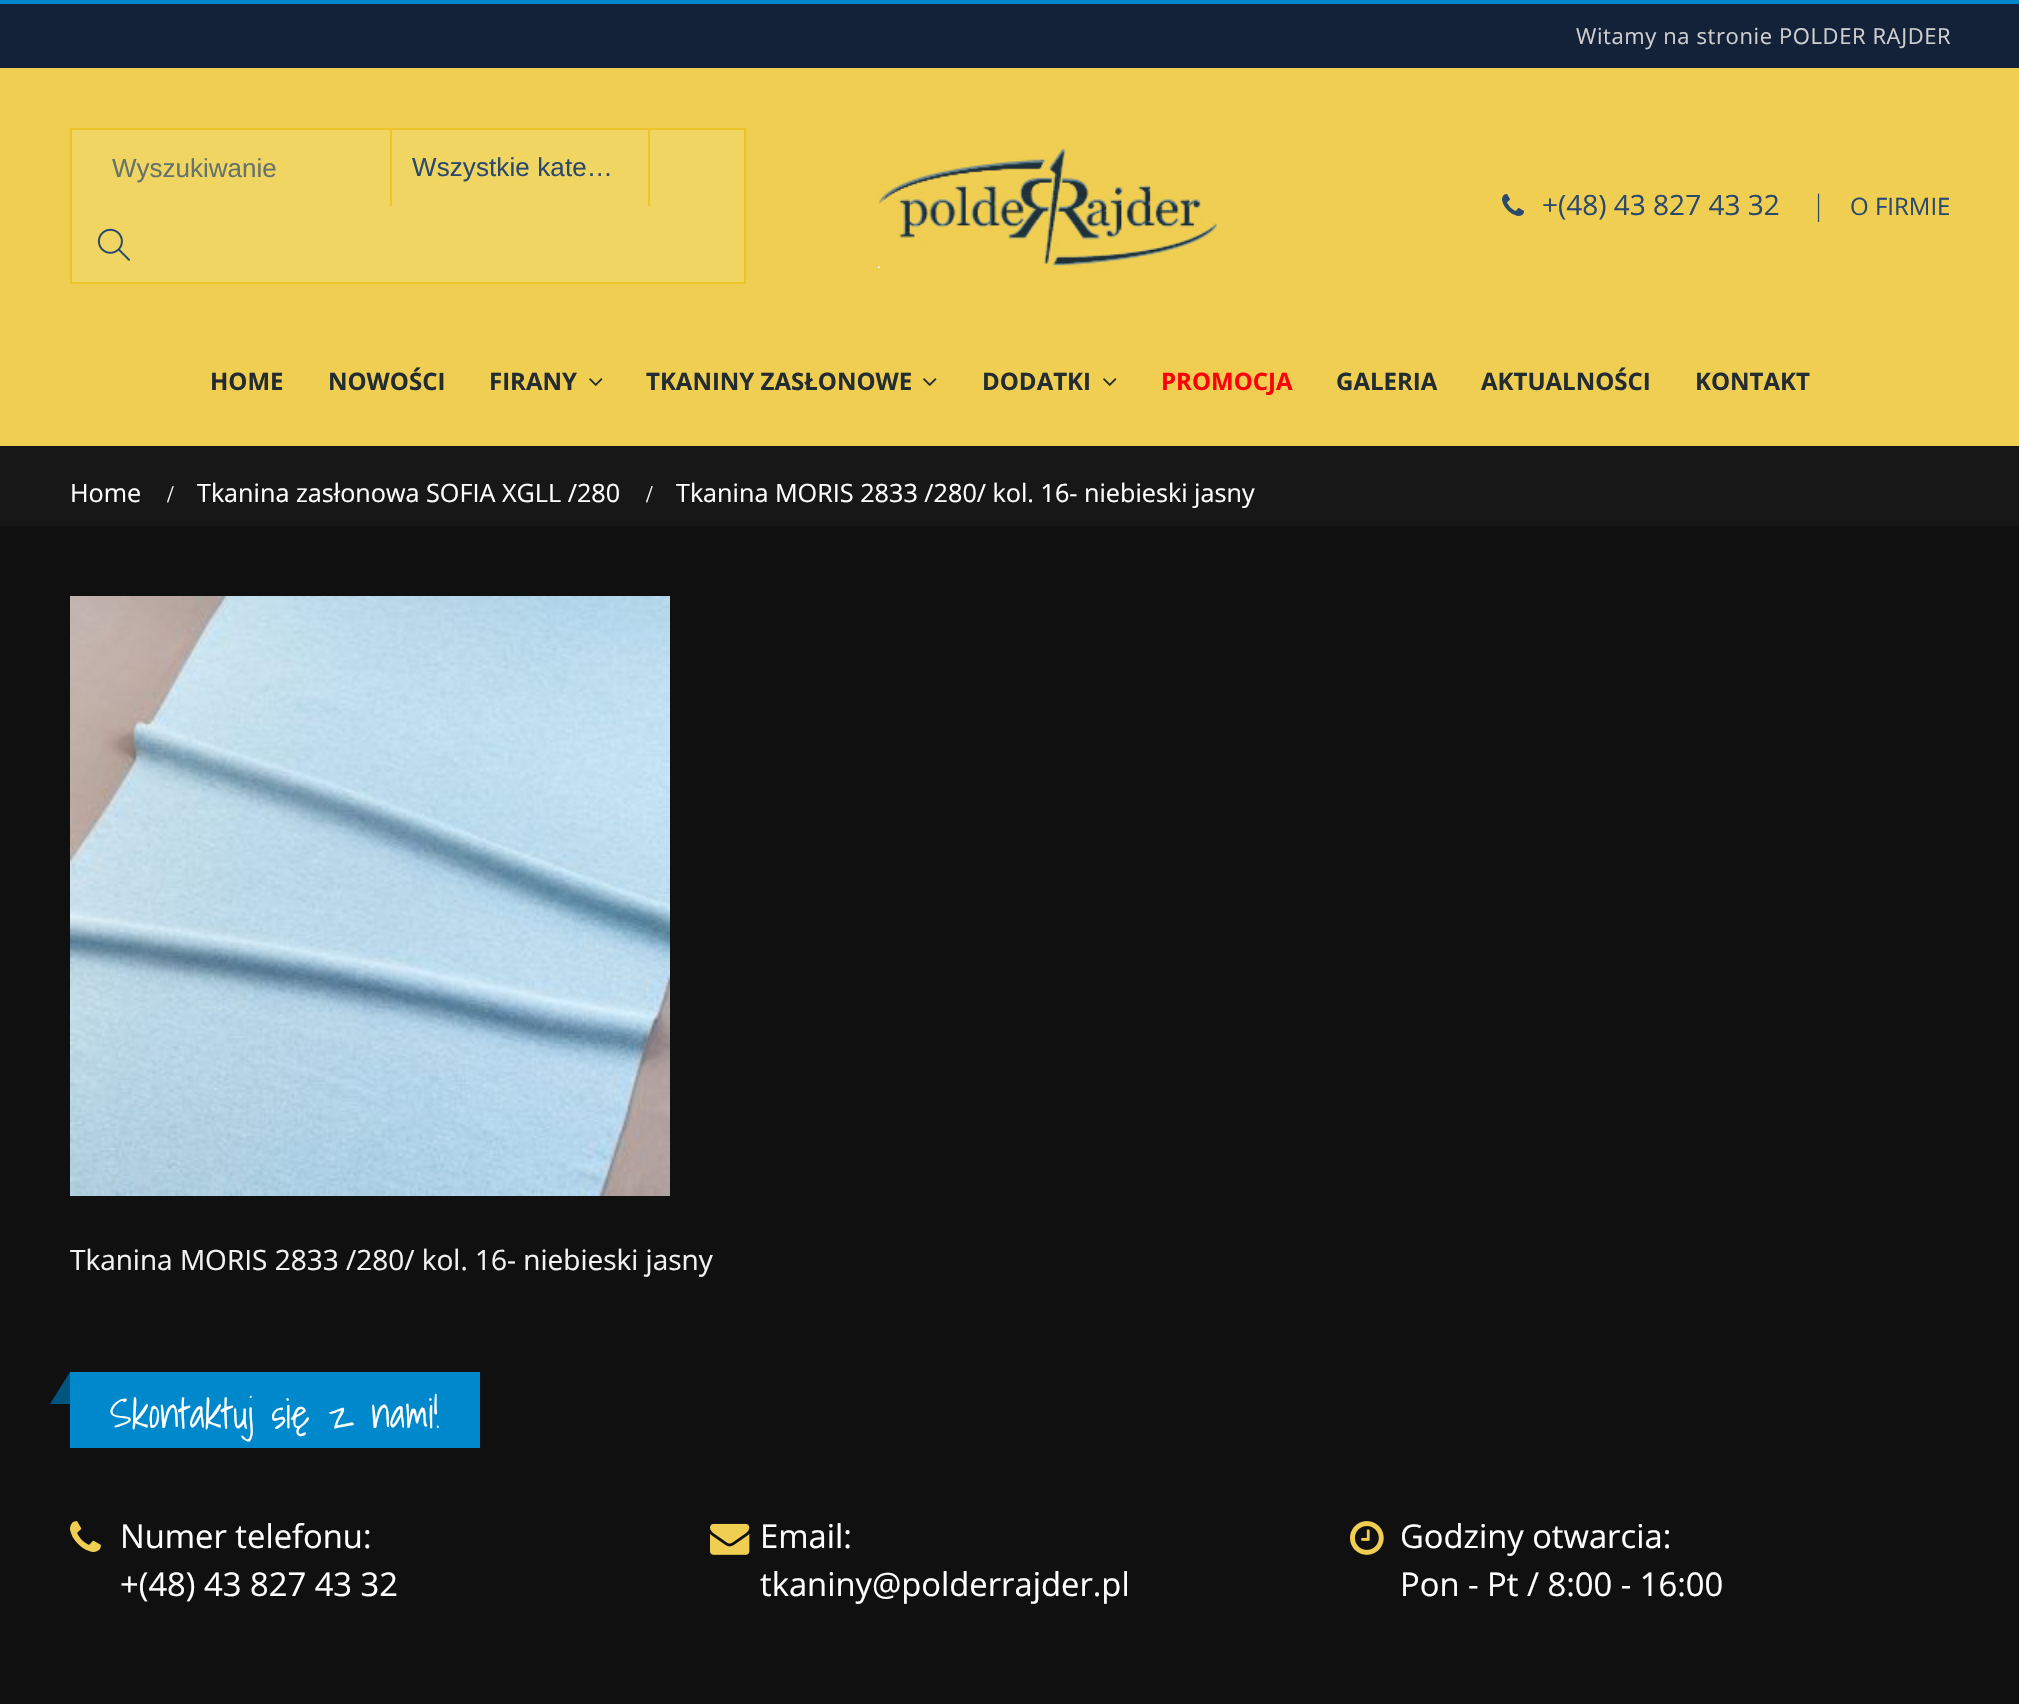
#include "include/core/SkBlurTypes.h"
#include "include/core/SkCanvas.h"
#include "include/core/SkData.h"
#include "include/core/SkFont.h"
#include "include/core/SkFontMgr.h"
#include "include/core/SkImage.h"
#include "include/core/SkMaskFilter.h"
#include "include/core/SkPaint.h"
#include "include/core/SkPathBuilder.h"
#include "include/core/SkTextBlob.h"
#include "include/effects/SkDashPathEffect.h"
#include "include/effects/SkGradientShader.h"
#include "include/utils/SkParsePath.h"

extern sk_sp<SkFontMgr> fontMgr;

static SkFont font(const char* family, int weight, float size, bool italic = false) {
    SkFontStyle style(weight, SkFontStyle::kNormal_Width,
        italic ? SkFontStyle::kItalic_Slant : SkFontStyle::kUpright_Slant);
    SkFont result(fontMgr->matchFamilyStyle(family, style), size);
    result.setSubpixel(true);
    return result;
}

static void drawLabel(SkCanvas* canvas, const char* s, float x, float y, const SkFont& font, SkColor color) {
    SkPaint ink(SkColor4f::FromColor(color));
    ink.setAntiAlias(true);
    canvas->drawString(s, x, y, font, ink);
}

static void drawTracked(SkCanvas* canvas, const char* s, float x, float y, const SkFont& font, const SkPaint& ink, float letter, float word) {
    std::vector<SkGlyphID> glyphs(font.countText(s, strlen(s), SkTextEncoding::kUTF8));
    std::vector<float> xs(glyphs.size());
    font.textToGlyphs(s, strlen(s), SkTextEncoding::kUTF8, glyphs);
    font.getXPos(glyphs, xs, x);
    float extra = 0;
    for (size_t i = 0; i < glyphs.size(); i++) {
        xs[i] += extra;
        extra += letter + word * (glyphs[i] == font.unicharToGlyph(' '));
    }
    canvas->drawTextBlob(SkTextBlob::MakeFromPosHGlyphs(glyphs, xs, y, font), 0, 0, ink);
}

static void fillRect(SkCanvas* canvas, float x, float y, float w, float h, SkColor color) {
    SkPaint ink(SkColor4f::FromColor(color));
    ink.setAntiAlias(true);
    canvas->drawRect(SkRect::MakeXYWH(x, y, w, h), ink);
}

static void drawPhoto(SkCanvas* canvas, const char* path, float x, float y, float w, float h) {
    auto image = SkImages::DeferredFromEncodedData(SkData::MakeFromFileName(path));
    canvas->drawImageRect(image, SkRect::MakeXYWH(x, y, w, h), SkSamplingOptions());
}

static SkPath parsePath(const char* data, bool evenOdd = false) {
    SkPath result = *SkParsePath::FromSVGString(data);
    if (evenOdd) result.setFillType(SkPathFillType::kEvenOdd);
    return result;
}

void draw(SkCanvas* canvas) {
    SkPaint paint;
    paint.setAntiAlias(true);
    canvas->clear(0xFF101010);
    fillRect(canvas, 0, 68, 2019, 378, 0xFFF0CE52);
    fillRect(canvas, 0, 0, 2019, 4, 0xFF0088CC);
    fillRect(canvas, 0, 4, 2019, 64, 0xFF132239);
    SkFont font1 = font("Open Sans", 400, 22);
    paint.setColor(0xFFCECECE);
    drawTracked(canvas, "Witamy na stronie POLDER RAJDER", 1576, 44, font1, paint, 0.6f, 0);
    paint.setColor(0xFFF0D562);
    canvas->drawRect(SkRect::MakeXYWH(71, 129, 674, 154), paint);
    paint.setStroke(true);
    paint.setStrokeWidth(2);
    paint.setColor(0xFFECC52A);
    canvas->drawRect(SkRect::MakeXYWH(71, 129, 674, 154), paint);
    fillRect(canvas, 390, 130, 2, 76, 0xFFECC52A);
    SkFont font2 = font("Liberation Sans", 400, 26);
    drawLabel(canvas, "Wyszukiwanie", 112, 177, font2, 0xFF66736A);
    fillRect(canvas, 648, 130, 2, 76, 0xFFECC52A);
    paint.setStroke(false);
    paint.setColor(0xFF2B496D);
    drawTracked(canvas, "Wszystkie kate…", 412, 176, font2, paint, 0.1f, 0);
    drawPhoto(canvas, "assets/img1.png", 97, 228, 33, 33);
    drawPhoto(canvas, "assets/img2.png", 878, 148, 339, 120);
    drawPhoto(canvas, "assets/img3.png", 1502, 194, 22, 22);
    SkFont font3 = font("Open Sans", 400, 28);
    drawLabel(canvas, "+(48) 43 827 43 32", 1542, 215, font3, 0xFF2B496D);
    SkFont font4 = font("Open Sans", 300, 28);
    drawLabel(canvas, "|", 1811, 215, font4, 0xFF2B496D);
    SkFont font5 = font("Open Sans", 400, 24);
    drawLabel(canvas, "O FIRMIE", 1850, 215, font5, 0xFF2B496D);
    SkFont font6 = font("Open Sans", 700, 24);
    drawLabel(canvas, "HOME", 210, 390, font6, 0xFF232C31);
    drawLabel(canvas, "NOWOŚCI", 328, 390, font6, 0xFF232C31);
    drawLabel(canvas, "FIRANY", 489, 390, font6, 0xFF232C31);
    drawPhoto(canvas, "assets/img4.png", 589, 378, 14, 8);
    drawLabel(canvas, "TKANINY ZASŁONOWE", 646, 390, font6, 0xFF232C31);
    drawPhoto(canvas, "assets/img4.png", 923, 378, 14, 8);
    drawLabel(canvas, "DODATKI", 982, 390, font6, 0xFF232C31);
    drawPhoto(canvas, "assets/img4.png", 1103, 378, 14, 8);
    drawLabel(canvas, "PROMOCJA", 1161, 390, font6, 0xFFFF000A);
    drawLabel(canvas, "GALERIA", 1336, 390, font6, 0xFF232C31);
    drawLabel(canvas, "AKTUALNOŚCI", 1481, 390, font6, 0xFF232C31);
    drawLabel(canvas, "KONTAKT", 1695, 390, font6, 0xFF232C31);
    fillRect(canvas, 0, 446, 2019, 80, 0xFF171717);
    SkFont font7 = font("Open Sans", 400, 25.2f);
    drawLabel(canvas, "Home", 70, 502, font7, 0xFFFFFFFF);
    SkFont font8 = font("Liberation Serif", 400, 24);
    drawLabel(canvas, "/", 167, 502, font8, 0xFFFFFFFF);
    drawLabel(canvas, "Tkanina zasłonowa SOFIA XGLL /280", 197, 502, font7, 0xFFFFFFFF);
    drawLabel(canvas, "/", 646, 502, font8, 0xFFFFFFFF);
    drawLabel(canvas, "Tkanina MORIS 2833 /280/ kol. 16- niebieski jasny", 676, 502, font7, 0xFFFFFFFF);
    drawPhoto(canvas, "assets/img5.png", 70, 596, 600, 600);
    drawLabel(canvas, "Tkanina MORIS 2833 /280/ kol. 16- niebieski jasny", 70, 1270, font3, 0xFFF2F2F2);
    fillRect(canvas, 70, 1372, 410, 76, 0xFF0088CC);
    paint.setColor(0xFF005580);
    canvas->drawPath(parsePath("M70 1372V1404H50Z"), paint);
    SkFont font9 = font("Shadows Into Light", 300, 40.25f);
    drawLabel(canvas, "Skontaktuj się z nami!", 110, 1428, font9, 0xFFFFFFFF);
    drawPhoto(canvas, "assets/img6.png", 70, 1521, 31, 31);
    SkFont font10 = font("Open Sans", 400, 32.75f);
    drawLabel(canvas, "Numer telefonu:", 120, 1548, font10, 0xFFFFFFFF);
    drawLabel(canvas, "+(48) 43 827 43 32", 120, 1596, font10, 0xFFFFFFFF);
    drawPhoto(canvas, "assets/img7.png", 710, 1523, 40, 32);
    drawLabel(canvas, "Email:", 760, 1548, font10, 0xFFFFFFFF);
    drawLabel(canvas, "tkaniny@polderrajder.pl", 760, 1596, font10, 0xFFFFFFFF);
    drawPhoto(canvas, "assets/img8.png", 1350, 1521, 34, 34);
    drawLabel(canvas, "Godziny otwarcia:", 1400, 1548, font10, 0xFFFFFFFF);
    drawLabel(canvas, "Pon - Pt / 8:00 - 16:00", 1400, 1596, font10, 0xFFFFFFFF);
}
